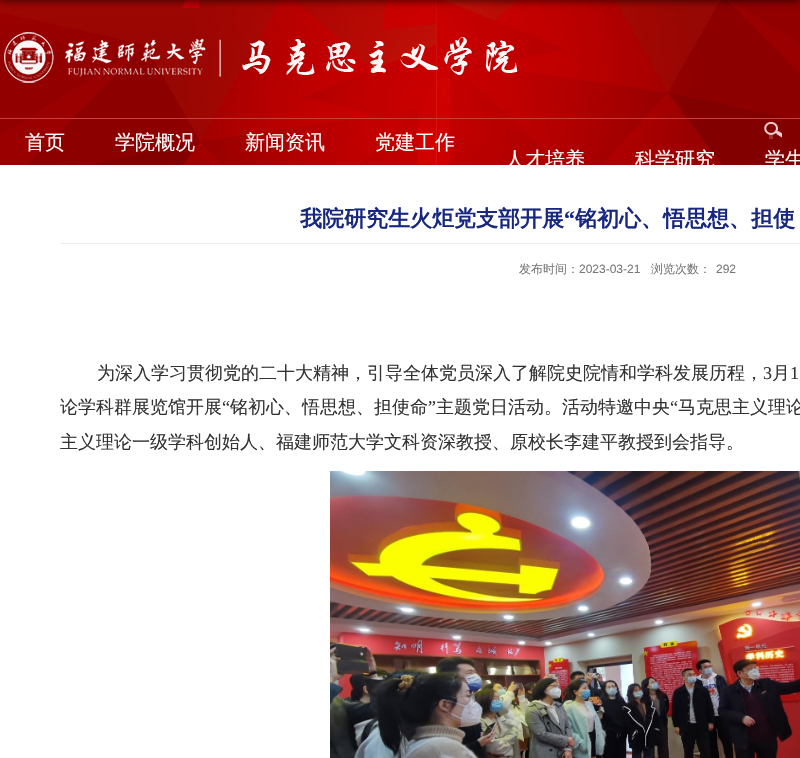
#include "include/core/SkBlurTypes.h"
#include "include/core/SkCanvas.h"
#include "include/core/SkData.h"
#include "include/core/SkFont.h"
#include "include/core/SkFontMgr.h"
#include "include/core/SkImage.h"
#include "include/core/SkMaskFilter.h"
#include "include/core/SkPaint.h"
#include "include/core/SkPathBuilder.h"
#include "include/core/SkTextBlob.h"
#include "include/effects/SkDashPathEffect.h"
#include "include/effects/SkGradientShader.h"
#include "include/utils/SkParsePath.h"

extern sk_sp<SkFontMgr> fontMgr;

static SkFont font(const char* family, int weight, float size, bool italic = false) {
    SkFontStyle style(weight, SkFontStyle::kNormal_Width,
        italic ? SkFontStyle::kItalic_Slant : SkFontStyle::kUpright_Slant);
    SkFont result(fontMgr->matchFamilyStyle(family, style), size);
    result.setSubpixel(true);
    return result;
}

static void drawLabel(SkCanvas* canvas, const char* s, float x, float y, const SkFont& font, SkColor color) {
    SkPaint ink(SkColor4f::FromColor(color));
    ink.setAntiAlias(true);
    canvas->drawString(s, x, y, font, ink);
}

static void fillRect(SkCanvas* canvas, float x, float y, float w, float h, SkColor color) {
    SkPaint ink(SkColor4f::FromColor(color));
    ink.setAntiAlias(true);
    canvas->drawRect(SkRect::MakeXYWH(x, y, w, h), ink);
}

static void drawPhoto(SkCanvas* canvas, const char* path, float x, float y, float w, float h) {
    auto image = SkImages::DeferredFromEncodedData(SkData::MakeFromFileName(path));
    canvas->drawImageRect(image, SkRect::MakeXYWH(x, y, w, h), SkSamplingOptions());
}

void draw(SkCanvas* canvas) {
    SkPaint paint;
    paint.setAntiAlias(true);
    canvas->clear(0xFFFFFFFF);
    drawPhoto(canvas, "assets/img1.png", 0, 0, 800, 165);
    paint.setColor(0xCC000000);
    paint.setMaskFilter(SkMaskFilter::MakeBlur(kNormal_SkBlurStyle, 5));
    canvas->drawRect(SkRect::MakeXYWH(0, -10, 800, 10), paint);
    paint.setMaskFilter(nullptr);
    drawPhoto(canvas, "assets/img2.png", 4, 32, 514, 51);
    drawPhoto(canvas, "assets/img3.png", 764, 121, 18, 17);
    fillRect(canvas, 769, 134, 4, 5, 0x33FFFFFF);
    fillRect(canvas, 0, 118, 800, 1, 0xFFCA4040);
    SkFont font1 = font("WenQuanYi Zen Hei", 500, 20);
    drawLabel(canvas, "首页", 25, 149, font1, 0xFFFFFFFF);
    drawLabel(canvas, "学院概况", 115, 149, font1, 0xFFFFFFFF);
    drawLabel(canvas, "新闻资讯", 245, 149, font1, 0xFFFFFFFF);
    drawLabel(canvas, "党建工作", 375, 149, font1, 0xFFFFFFFF);
    drawLabel(canvas, "人才培养", 505, 166, font1, 0xFFFFFFFF);
    drawLabel(canvas, "科学研究", 635, 166, font1, 0xFFFFFFFF);
    drawLabel(canvas, "学生", 765, 166, font1, 0xFFFFFFFF);
    SkFont font2 = font("WenQuanYi Zen Hei", 700, 22);
    drawLabel(canvas, "我院研究生火炬党支部开展", 300, 226, font2, 0xFF182880);
    SkFont font3 = font("Liberation Serif", 700, 22);
    drawLabel(canvas, "“", 564, 226, font3, 0xFF182880);
    drawLabel(canvas, "铭初心、悟思想、担使", 575, 226, font2, 0xFF182880);
    fillRect(canvas, 60, 243, 740, 1, 0xFFECECEC);
    SkFont font4 = font("WenQuanYi Zen Hei", 500, 12);
    drawLabel(canvas, "发布时间：", 519, 273, font4, 0xFF787878);
    SkFont font5 = font("Liberation Sans", 400, 12);
    drawLabel(canvas, "2023-03-21", 579, 273, font5, 0xFF787878);
    drawLabel(canvas, "浏览次数：", 651, 273, font4, 0xFF787878);
    drawLabel(canvas, "292", 716, 273, font5, 0xFF787878);
    SkFont font6 = font("WenQuanYi Zen Hei", 500, 18);
    drawLabel(canvas, "为深入学习贯彻党的二十大精神，引导全体党员深入了解院史院情和学科发展历程，", 97, 379, font6, 0xFF333333);
    SkFont font7 = font("Liberation Serif", 400, 18);
    drawLabel(canvas, "3", 763, 379, font7, 0xFF333333);
    drawLabel(canvas, "月", 772, 379, font6, 0xFF333333);
    drawLabel(canvas, "1", 790, 379, font7, 0xFF333333);
    drawLabel(canvas, "论学科群展览馆开展", 60, 413, font6, 0xFF333333);
    drawLabel(canvas, "“", 222, 413, font7, 0xFF333333);
    drawLabel(canvas, "铭初心、悟思想、担使命", 230, 413, font6, 0xFF333333);
    drawLabel(canvas, "”", 428, 413, font7, 0xFF333333);
    drawLabel(canvas, "主题党日活动。活动特邀中央", 436, 413, font6, 0xFF333333);
    drawLabel(canvas, "“", 670, 413, font7, 0xFF333333);
    drawLabel(canvas, "马克思主义理论", 678, 413, font6, 0xFF333333);
    drawLabel(canvas, "主义理论一级学科创始人、福建师范大学文科资深教授、原校长李建平教授到会指导。", 60, 448, font6, 0xFF333333);
    drawPhoto(canvas, "assets/img4.png", 330, 471, 470, 287);
}
